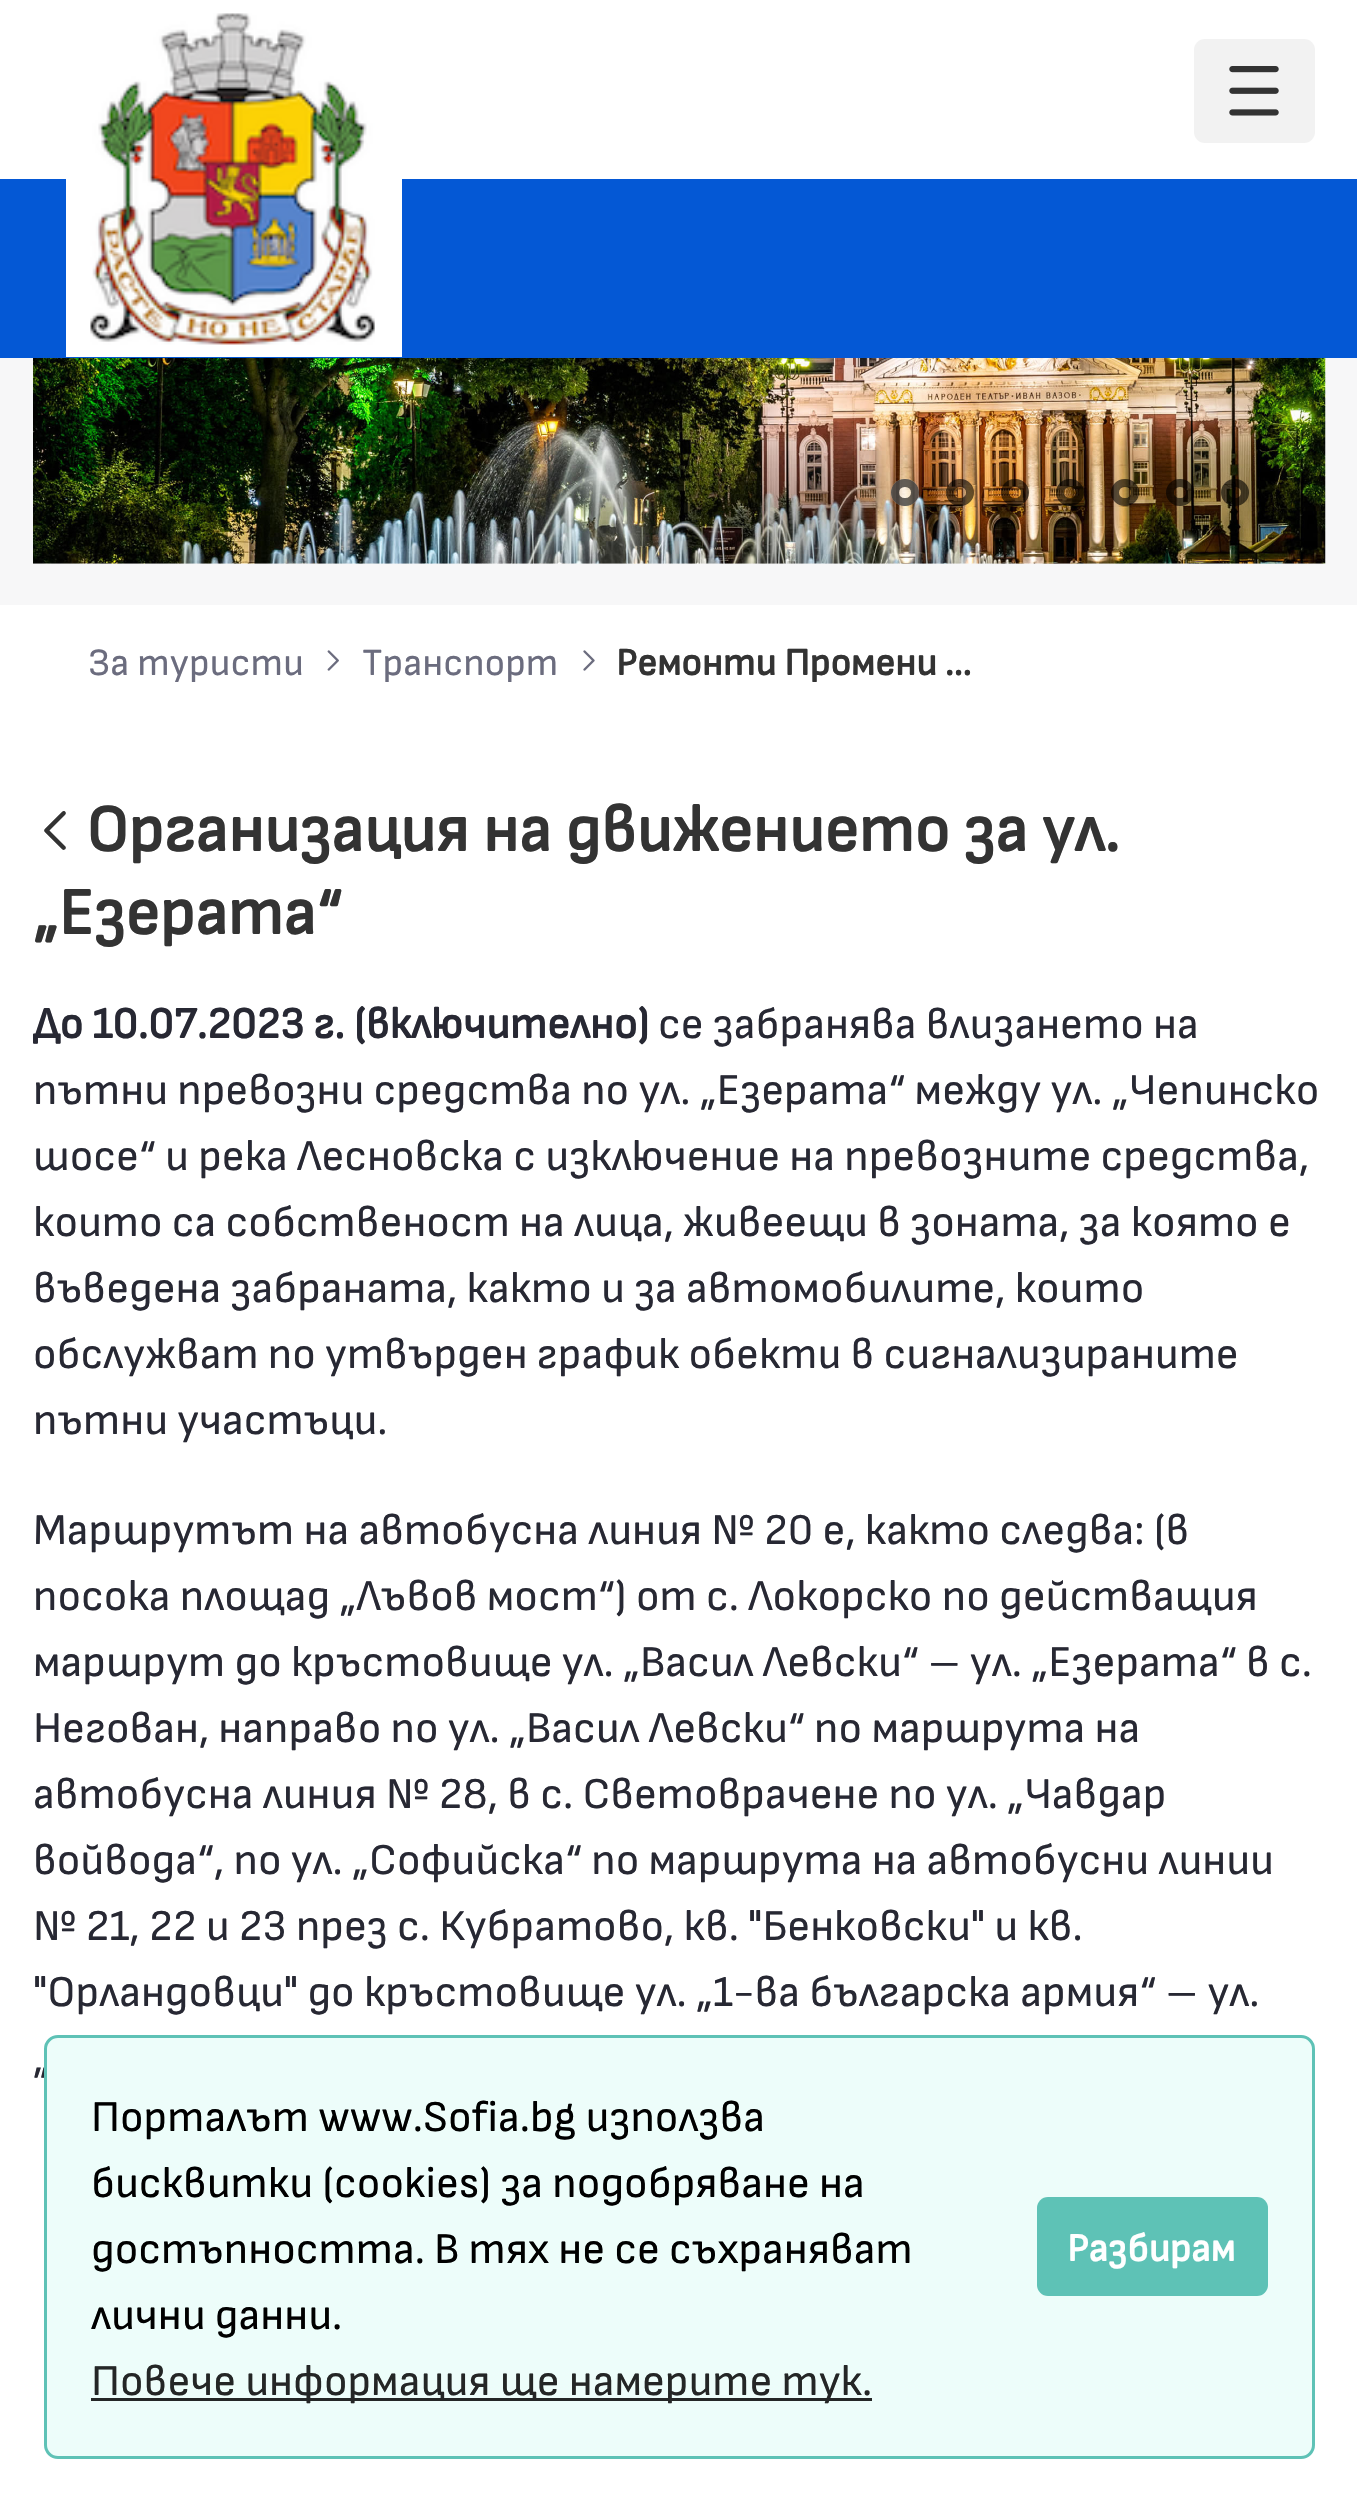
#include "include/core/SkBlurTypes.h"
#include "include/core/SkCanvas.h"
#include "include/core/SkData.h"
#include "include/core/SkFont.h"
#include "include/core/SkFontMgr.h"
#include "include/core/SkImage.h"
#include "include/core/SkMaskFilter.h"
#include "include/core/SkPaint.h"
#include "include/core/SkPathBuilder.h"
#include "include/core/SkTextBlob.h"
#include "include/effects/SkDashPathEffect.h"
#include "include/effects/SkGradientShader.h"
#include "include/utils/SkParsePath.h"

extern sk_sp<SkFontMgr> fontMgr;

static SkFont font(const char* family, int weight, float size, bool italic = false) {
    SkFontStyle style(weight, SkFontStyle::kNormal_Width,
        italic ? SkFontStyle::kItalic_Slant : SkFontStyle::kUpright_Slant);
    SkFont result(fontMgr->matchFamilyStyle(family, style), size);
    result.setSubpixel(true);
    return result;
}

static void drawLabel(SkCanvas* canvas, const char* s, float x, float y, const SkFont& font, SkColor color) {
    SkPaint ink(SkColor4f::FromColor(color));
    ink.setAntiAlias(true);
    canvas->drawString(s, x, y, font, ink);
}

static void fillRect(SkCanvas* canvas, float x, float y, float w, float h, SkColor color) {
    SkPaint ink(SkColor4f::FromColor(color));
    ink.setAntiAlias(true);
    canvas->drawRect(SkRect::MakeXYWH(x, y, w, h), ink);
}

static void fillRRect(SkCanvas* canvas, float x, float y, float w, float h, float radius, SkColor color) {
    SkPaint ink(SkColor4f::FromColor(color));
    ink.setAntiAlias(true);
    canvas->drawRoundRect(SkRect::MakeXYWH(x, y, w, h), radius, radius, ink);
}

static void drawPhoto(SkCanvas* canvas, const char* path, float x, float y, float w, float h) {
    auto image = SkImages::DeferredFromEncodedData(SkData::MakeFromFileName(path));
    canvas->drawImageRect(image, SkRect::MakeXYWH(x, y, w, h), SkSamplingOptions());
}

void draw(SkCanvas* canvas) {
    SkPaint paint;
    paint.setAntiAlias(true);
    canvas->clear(0xFFFFFFFF);
    fillRect(canvas, 0, 179, 1357, 179, 0xFF0458D5);
    drawPhoto(canvas, "assets/img1.png", 66, 13, 336, 344);
    fillRRect(canvas, 1194, 39, 121, 104, 11, 0xFFF2F2F2);
    drawPhoto(canvas, "assets/img2.png", 1229, 66, 50, 50);
    fillRect(canvas, 0, 358, 1357, 247, 0xFFF7F7F8);
    drawPhoto(canvas, "assets/img3.png", 33, 358, 1293, 206);
    fillRRect(canvas, 891, 479, 28, 27, 13.5f, 0x99FFFFFF);
    paint.setStroke(true);
    paint.setStrokeWidth(8);
    paint.setColor(0x99000000);
    canvas->drawRoundRect(SkRect::MakeXYWH(895, 483, 20, 19), 9.5f, 9.5f, paint);
    canvas->drawRoundRect(SkRect::MakeXYWH(950, 483, 20, 19), 9.5f, 9.5f, paint);
    canvas->drawRoundRect(SkRect::MakeXYWH(1005, 483, 20, 19), 9.5f, 9.5f, paint);
    canvas->drawRoundRect(SkRect::MakeXYWH(1060, 483, 20, 19), 9.5f, 9.5f, paint);
    canvas->drawRoundRect(SkRect::MakeXYWH(1115, 483, 20, 19), 9.5f, 9.5f, paint);
    canvas->drawRoundRect(SkRect::MakeXYWH(1170, 483, 20, 19), 9.5f, 9.5f, paint);
    canvas->drawRoundRect(SkRect::MakeXYWH(1225, 483, 20, 19), 9.5f, 9.5f, paint);
    SkFont font1 = font("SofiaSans", 400, 38.5f);
    drawLabel(canvas, "За туристи", 88, 675, font1, 0xFF6B6C7E);
    drawPhoto(canvas, "assets/img4.png", 327, 650, 12, 21);
    drawLabel(canvas, "Транспорт", 362, 675, font1, 0xFF6B6C7E);
    drawPhoto(canvas, "assets/img5.png", 583, 650, 12, 21);
    SkFont font2 = font("SofiaSans", 700, 38.5f);
    drawLabel(canvas, "Ремонти Промени …", 616, 675, font2, 0xFF333333);
    drawPhoto(canvas, "assets/img6.png", 44, 811, 22, 39);
    SkFont font3 = font("SofiaSans", 700, 66);
    drawLabel(canvas, "Организация на движението за ул.", 86, 851, font3, 0xFF333333);
    drawLabel(canvas, "„Езерата“", 33, 934, font3, 0xFF333333);
    SkFont font4 = font("SofiaSans", 700, 44);
    drawLabel(canvas, "До 10.07.2023 г. (включително)", 33, 1038, font4, 0xFF272833);
    SkFont font5 = font("SofiaSans", 400, 44);
    drawLabel(canvas, "се забранява влизането на", 658, 1038, font5, 0xFF272833);
    drawLabel(canvas, "пътни превозни средства по ул. „Езерата“ между ул. „Чепинско", 33, 1104, font5, 0xFF272833);
    drawLabel(canvas, "шосе“ и река Лесновска с изключение на превозните средства,", 33, 1170, font5, 0xFF272833);
    drawLabel(canvas, "които са собственост на лица, живеещи в зоната, за която е", 33, 1236, font5, 0xFF272833);
    drawLabel(canvas, "въведена забраната, както и за автомобилите, които", 33, 1302, font5, 0xFF272833);
    drawLabel(canvas, "обслужват по утвърден график обекти в сигнализираните", 33, 1368, font5, 0xFF272833);
    drawLabel(canvas, "пътни участъци.", 33, 1434, font5, 0xFF272833);
    drawLabel(canvas, "Маршрутът на автобусна линия № 20 е, както следва: (в", 33, 1544, font5, 0xFF272833);
    drawLabel(canvas, "посока площад „Лъвов мост“) от с. Локорско по действащия", 33, 1610, font5, 0xFF272833);
    drawLabel(canvas, "маршрут до кръстовище ул. „Васил Левски“ – ул. „Езерата“ в с.", 33, 1676, font5, 0xFF272833);
    drawLabel(canvas, "Негован, направо по ул. „Васил Левски“ по маршрута на", 33, 1742, font5, 0xFF272833);
    drawLabel(canvas, "автобусна линия № 28, в с. Световрачене по ул. „Чавдар", 33, 1808, font5, 0xFF272833);
    drawLabel(canvas, "войвода“, по ул. „Софийска“ по маршрута на автобусни линии", 33, 1874, font5, 0xFF272833);
    drawLabel(canvas, "№ 21, 22 и 23 през с. Кубратово, кв. \"Бенковски\" и кв.", 33, 1940, font5, 0xFF272833);
    drawLabel(canvas, "\"Орландовци\" до кръстовище ул. „1-ва българска армия“ – ул.", 33, 2006, font5, 0xFF272833);
    drawLabel(canvas, "„", 33, 2072, font5, 0xFF272833);
    paint.setStroke(false);
    paint.setColor(0xFFEDFDFA);
    canvas->drawRoundRect(SkRect::MakeXYWH(45.5f, 2036.5f, 1268, 421), 12.5f, 12.5f, paint);
    paint.setStroke(true);
    paint.setStrokeWidth(3);
    paint.setColor(0xFF5EC2B6);
    canvas->drawRoundRect(SkRect::MakeXYWH(45.5f, 2036.5f, 1268, 421), 12.5f, 12.5f, paint);
    drawLabel(canvas, "Порталът www.Sofia.bg използва", 91, 2131, font5, 0xFF000000);
    drawLabel(canvas, "бисквитки (cookies) за подобряване на", 91, 2197, font5, 0xFF000000);
    drawLabel(canvas, "достъпността. В тях не се съхраняват", 91, 2263, font5, 0xFF000000);
    drawLabel(canvas, "лични данни.", 91, 2329, font5, 0xFF000000);
    fillRect(canvas, 91, 2398, 781, 3, 0xFF242626);
    drawLabel(canvas, "Повече информация ще намерите тук.", 91, 2395, font5, 0xFF242626);
    fillRRect(canvas, 1037, 2197, 231, 99, 11, 0xFF5EC2B6);
    SkFont font6 = font("SofiaSans", 700, 39.5f);
    drawLabel(canvas, "Разбирам", 1067, 2261, font6, 0xFFFFFFFF);
}
